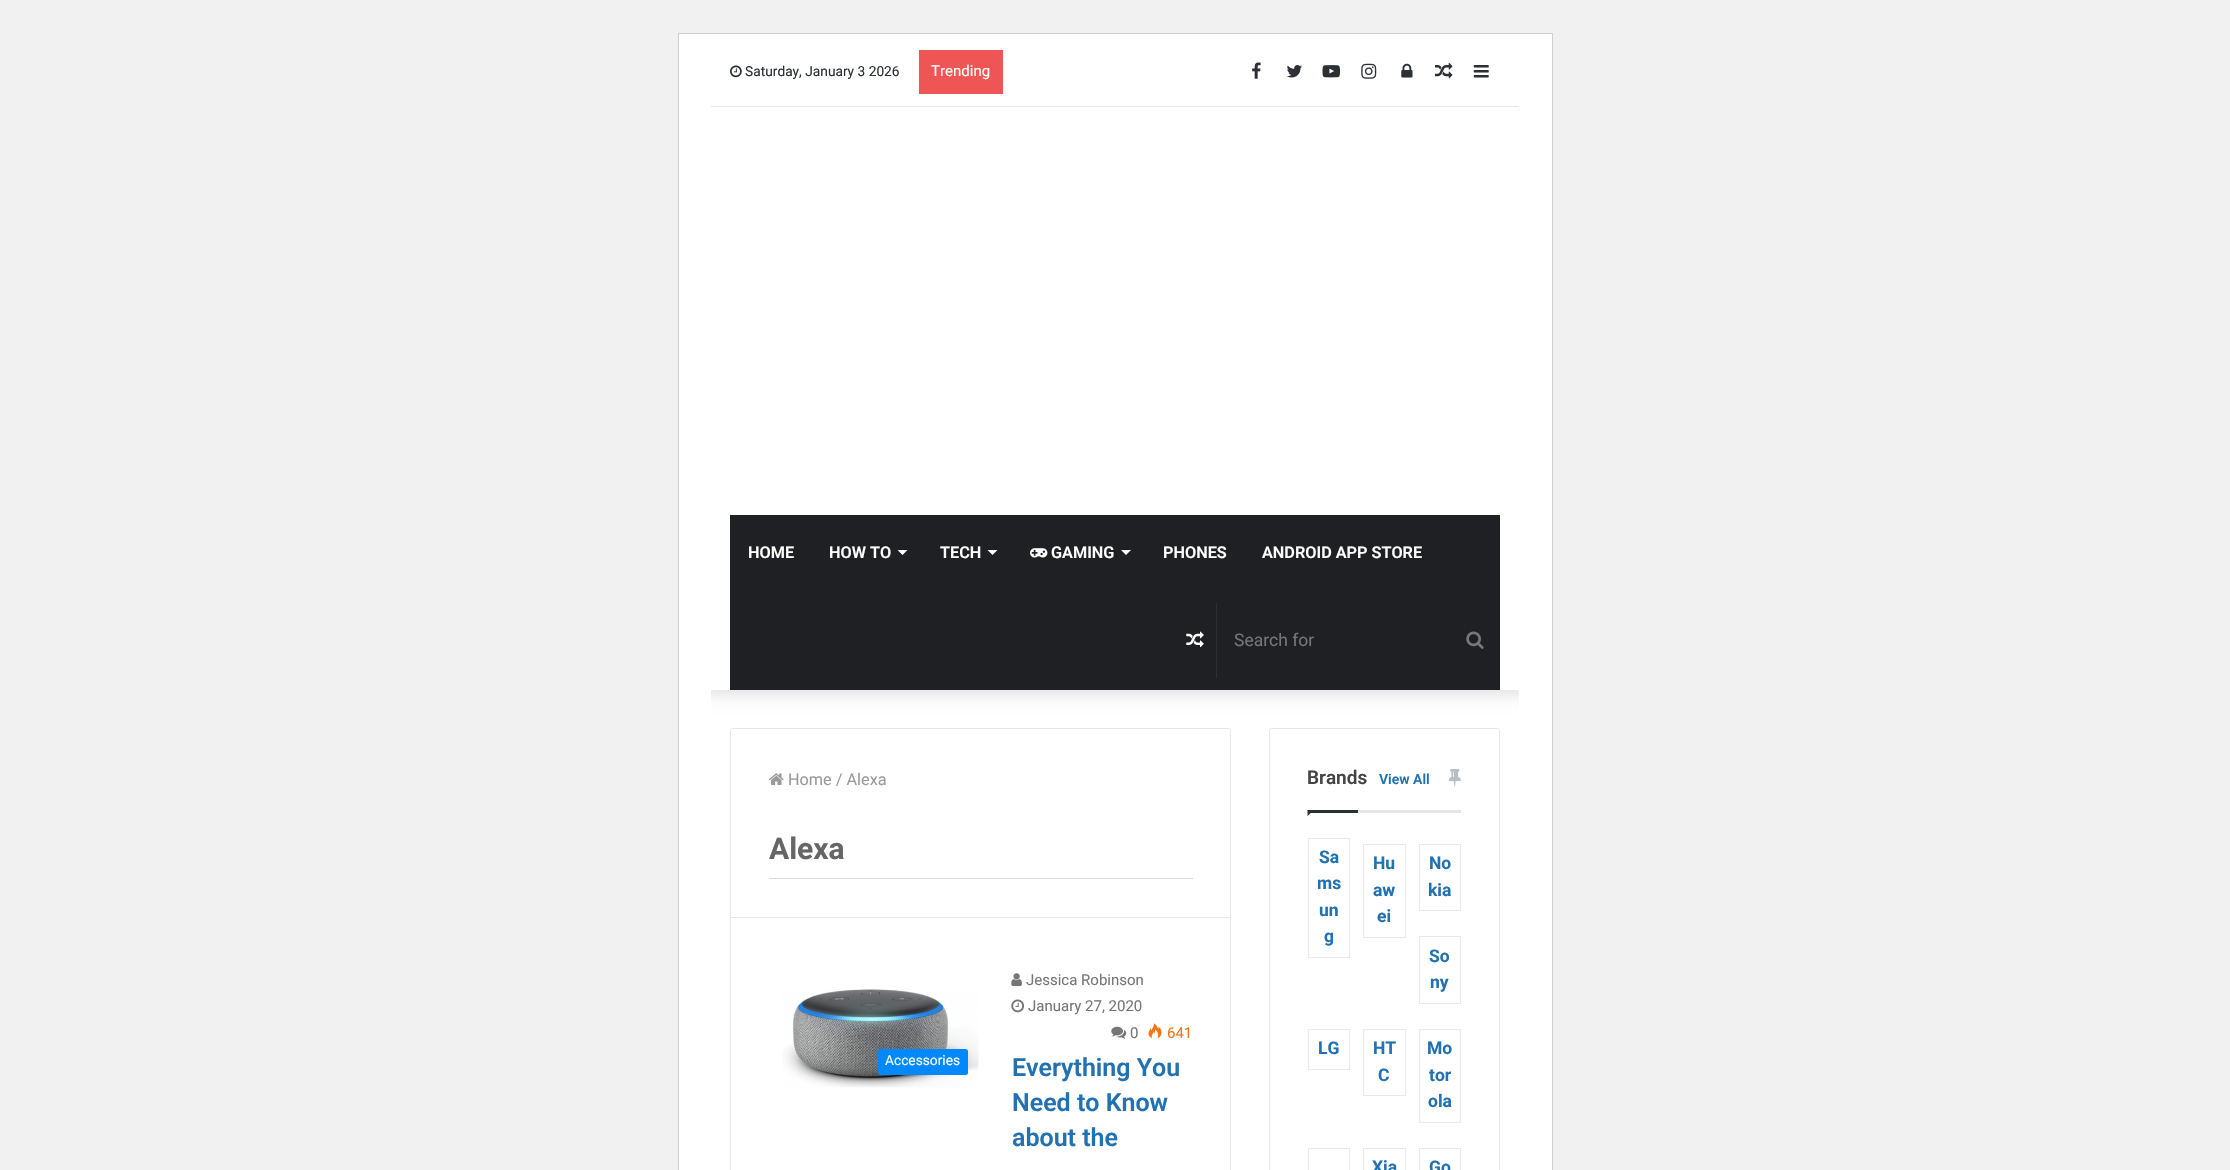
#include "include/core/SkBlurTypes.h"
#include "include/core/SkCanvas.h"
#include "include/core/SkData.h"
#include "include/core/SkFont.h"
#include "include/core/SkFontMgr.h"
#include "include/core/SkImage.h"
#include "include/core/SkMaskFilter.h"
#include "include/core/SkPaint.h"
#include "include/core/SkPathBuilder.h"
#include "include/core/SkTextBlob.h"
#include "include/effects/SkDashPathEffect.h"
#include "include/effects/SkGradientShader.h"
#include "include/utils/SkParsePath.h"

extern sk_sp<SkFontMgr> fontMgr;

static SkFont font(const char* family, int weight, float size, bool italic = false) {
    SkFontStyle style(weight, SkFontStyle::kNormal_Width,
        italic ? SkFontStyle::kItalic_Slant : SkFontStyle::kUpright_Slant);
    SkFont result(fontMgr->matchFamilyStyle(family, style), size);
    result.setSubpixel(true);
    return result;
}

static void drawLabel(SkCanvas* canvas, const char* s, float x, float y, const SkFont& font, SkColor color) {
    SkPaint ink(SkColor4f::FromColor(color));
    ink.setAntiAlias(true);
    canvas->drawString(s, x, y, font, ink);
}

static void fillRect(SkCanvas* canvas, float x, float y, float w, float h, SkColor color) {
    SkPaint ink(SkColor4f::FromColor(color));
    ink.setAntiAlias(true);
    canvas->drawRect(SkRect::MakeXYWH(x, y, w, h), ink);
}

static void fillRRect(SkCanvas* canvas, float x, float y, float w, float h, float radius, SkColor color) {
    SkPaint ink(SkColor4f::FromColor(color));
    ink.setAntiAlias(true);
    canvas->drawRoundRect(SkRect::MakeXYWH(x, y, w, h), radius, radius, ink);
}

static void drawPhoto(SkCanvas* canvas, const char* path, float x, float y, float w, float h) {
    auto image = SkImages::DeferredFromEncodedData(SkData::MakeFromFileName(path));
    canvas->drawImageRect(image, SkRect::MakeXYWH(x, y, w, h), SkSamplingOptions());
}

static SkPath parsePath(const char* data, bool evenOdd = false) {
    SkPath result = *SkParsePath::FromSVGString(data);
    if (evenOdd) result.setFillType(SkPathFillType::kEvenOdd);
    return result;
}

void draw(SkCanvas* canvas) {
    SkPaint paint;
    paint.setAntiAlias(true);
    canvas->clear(0xFFF1F1F1);
    paint.setColor(0xFFFFFFFF);
    canvas->drawRect(SkRect::MakeXYWH(678.5f, 33.5f, 874, 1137), paint);
    paint.setStroke(true);
    paint.setStrokeWidth(1);
    paint.setColor(0xFFCCD0D4);
    canvas->drawRect(SkRect::MakeXYWH(678.5f, 33.5f, 874, 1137), paint);
    canvas->save();
    canvas->clipRect(SkRect::MakeXYWH(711, 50, 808, 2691));
    paint.setStroke(false);
    paint.setColor(0x1A000000);
    paint.setMaskFilter(SkMaskFilter::MakeBlur(kNormal_SkBlurStyle, 6));
    canvas->drawRect(SkRect::MakeXYWH(705, 44, 820, 652), paint);
    paint.setMaskFilter(nullptr);
    canvas->restore();
    fillRect(canvas, 711, 50, 808, 640, 0xFFFFFFFF);
    fillRect(canvas, 711, 106, 808, 1, 0xFFE6E6E6);
    drawPhoto(canvas, "assets/img1.png", 730, 65, 12, 13);
    SkFont font1 = font("Roboto", 400, 13.75f);
    drawLabel(canvas, "Saturday, January 3 2026", 745, 76, font1, 0xFF2C2F34);
    fillRect(canvas, 919, 50, 84, 44, 0xFFF05555);
    SkFont font2 = font("Roboto", 400, 15);
    drawLabel(canvas, "Trending", 931, 76, font2, 0xFFFFFFFF);
    drawPhoto(canvas, "assets/img2.png", 1252, 62, 9, 17);
    drawPhoto(canvas, "assets/img3.png", 1286, 65, 16, 13);
    drawPhoto(canvas, "assets/img4.png", 1322, 65, 18, 13);
    drawPhoto(canvas, "assets/img5.png", 1361, 63, 16, 16);
    drawPhoto(canvas, "assets/img6.png", 1401, 63, 12, 15);
    drawPhoto(canvas, "assets/img7.png", 1435, 62, 18, 17);
    drawPhoto(canvas, "assets/img8.png", 1473, 65, 16, 13);
    fillRect(canvas, 730, 515, 770, 175, 0xFF1F2024);
    SkFont font3 = font("Roboto", 600, 16.25f);
    drawLabel(canvas, "HOME", 748, 558, font3, 0xFFFFFFFF);
    drawLabel(canvas, "HOW TO", 829, 558, font3, 0xFFFFFFFF);
    paint.setColor(0xFFFFFFFF);
    canvas->drawPath(parsePath("M897.5 550H907.5L902.5 555Z"), paint);
    drawLabel(canvas, "TECH", 940, 558, font3, 0xFFFFFFFF);
    canvas->drawPath(parsePath("M987.5 550H997.5L992.5 555Z"), paint);
    drawPhoto(canvas, "assets/img9.png", 1030, 548, 18, 10);
    drawLabel(canvas, "GAMING", 1051, 558, font3, 0xFFFFFFFF);
    canvas->drawPath(parsePath("M1121 550H1131L1126 555Z"), paint);
    drawLabel(canvas, "PHONES", 1163, 558, font3, 0xFFFFFFFF);
    drawLabel(canvas, "ANDROID APP STORE", 1262, 558, font3, 0xFFFFFFFF);
    drawPhoto(canvas, "assets/img10.png", 1186, 631, 18, 17);
    fillRect(canvas, 1216, 603, 1, 75, 0xFF2F3033);
    SkFont font4 = font("Roboto", 400, 17.5f);
    drawLabel(canvas, "Search for", 1234, 646, font4, 0xFF767676);
    drawPhoto(canvas, "assets/img11.png", 1466, 631, 18, 18);
    paint.setStroke(true);
    paint.setColor(0xFFE6E6E6);
    canvas->drawPath(parsePath("M732.5 728.5H1228.5C1229.5 728.5 1230.5 729.5 1230.5 730.5V917.5H730.5V730.5C730.5 729.5 731.5 728.5 732.5 728.5Z"), paint);
    drawPhoto(canvas, "assets/img12.png", 769, 773, 15, 12);
    SkFont font5 = font("Roboto", 400, 16.25f);
    drawLabel(canvas, "Home / Alexa", 788, 785, font5, 0xFF999999);
    fillRect(canvas, 769, 878, 424, 1, 0xFFDADADA);
    SkFont font6 = font("Roboto", 700, 30);
    drawLabel(canvas, "Alexa", 769, 859, font6, 0xFF666666);
    fillRect(canvas, 1230, 918, 1, 252, 0xFFE6E6E6);
    fillRect(canvas, 730, 918, 1, 252, 0xFFE6E6E6);
    drawPhoto(canvas, "assets/img13.png", 782, 989, 197, 99);
    fillRRect(canvas, 878, 1049, 90, 26, 2.5f, 0xFF0088FF);
    drawLabel(canvas, "Accessories", 885, 1065, font1, 0xFFFFFFFF);
    drawPhoto(canvas, "assets/img14.png", 1011, 973, 11, 14);
    drawLabel(canvas, "Jessica Robinson", 1026, 985, font2, 0xFF767676);
    drawPhoto(canvas, "assets/img15.png", 1011, 999, 14, 14);
    drawLabel(canvas, "January 27, 2020", 1028, 1011, font2, 0xFF767676);
    drawPhoto(canvas, "assets/img16.png", 1111, 1026, 16, 13);
    drawLabel(canvas, "0", 1130, 1038, font2, 0xFF767676);
    drawPhoto(canvas, "assets/img17.png", 1148, 1023, 14, 16);
    drawLabel(canvas, "641", 1167, 1038, font2, 0xFFF47512);
    SkFont font7 = font("Roboto", 600, 25);
    drawLabel(canvas, "Everything You", 1012, 1076, font7, 0xFF2271B1);
    drawLabel(canvas, "Need to Know", 1012, 1111, font7, 0xFF2271B1);
    drawLabel(canvas, "about the", 1012, 1146, font7, 0xFF2271B1);
    canvas->drawRoundRect(SkRect::MakeXYWH(1269.5f, 728.5f, 230, 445), 2, 2, paint);
    fillRect(canvas, 1358, 810, 103, 3, 0xFFE6E6E6);
    SkFont font8 = font("Roboto", 600, 19);
    drawLabel(canvas, "Brands", 1307, 784, font8, 0xFF444444);
    SkFont font9 = font("Roboto", 600, 14);
    drawLabel(canvas, "View All", 1379, 784, font9, 0xFF2271B1);
    drawPhoto(canvas, "assets/img18.png", 1448, 769, 13, 18);
    paint.setStroke(false);
    paint.setColor(0xFF2C2F34);
    canvas->drawPath(parsePath("M1307.5 810H1314L1307.5 816Z"), paint);
    fillRect(canvas, 1308, 810, 50, 3, 0xFF2C2F34);
    paint.setStroke(true);
    paint.setColor(0xFFE8E9EA);
    canvas->drawRect(SkRect::MakeXYWH(1308.5f, 838.5f, 41, 119), paint);
    SkFont font10 = font("Roboto", 700, 17.5f);
    drawLabel(canvas, "Sa", 1319, 863, font10, 0xFF2271B1);
    drawLabel(canvas, "ms", 1317, 889, font10, 0xFF2271B1);
    drawLabel(canvas, "un", 1319, 916, font10, 0xFF2271B1);
    drawLabel(canvas, "g", 1324, 942, font10, 0xFF2271B1);
    canvas->drawRect(SkRect::MakeXYWH(1363.5f, 844.5f, 42, 93), paint);
    drawLabel(canvas, "Hu", 1373, 869, font10, 0xFF2271B1);
    drawLabel(canvas, "aw", 1373, 896, font10, 0xFF2271B1);
    drawLabel(canvas, "ei", 1377, 922, font10, 0xFF2271B1);
    canvas->drawRect(SkRect::MakeXYWH(1419.5f, 844.5f, 41, 66), paint);
    drawLabel(canvas, "No", 1429, 869, font10, 0xFF2271B1);
    drawLabel(canvas, "kia", 1428, 896, font10, 0xFF2271B1);
    canvas->drawRect(SkRect::MakeXYWH(1419.5f, 936.5f, 41, 67), paint);
    drawLabel(canvas, "So", 1429, 962, font10, 0xFF2271B1);
    drawLabel(canvas, "ny", 1430, 988, font10, 0xFF2271B1);
    canvas->drawRect(SkRect::MakeXYWH(1308.5f, 1029.5f, 41, 40), paint);
    drawLabel(canvas, "LG", 1318, 1054, font10, 0xFF2271B1);
    canvas->drawRect(SkRect::MakeXYWH(1363.5f, 1029.5f, 42, 66), paint);
    drawLabel(canvas, "HT", 1373, 1054, font10, 0xFF2271B1);
    drawLabel(canvas, "C", 1378, 1081, font10, 0xFF2271B1);
    canvas->drawRect(SkRect::MakeXYWH(1419.5f, 1029.5f, 41, 93), paint);
    drawLabel(canvas, "Mo", 1427, 1054, font10, 0xFF2271B1);
    drawLabel(canvas, "tor", 1429, 1081, font10, 0xFF2271B1);
    drawLabel(canvas, "ola", 1428, 1107, font10, 0xFF2271B1);
    canvas->drawRect(SkRect::MakeXYWH(1308.5f, 1148.5f, 41, 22), paint);
    canvas->drawRect(SkRect::MakeXYWH(1363.5f, 1148.5f, 42, 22), paint);
    drawLabel(canvas, "Xia", 1372, 1173, font10, 0xFF2271B1);
    canvas->drawRect(SkRect::MakeXYWH(1419.5f, 1148.5f, 41, 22), paint);
    drawLabel(canvas, "Go", 1429, 1173, font10, 0xFF2271B1);
}
